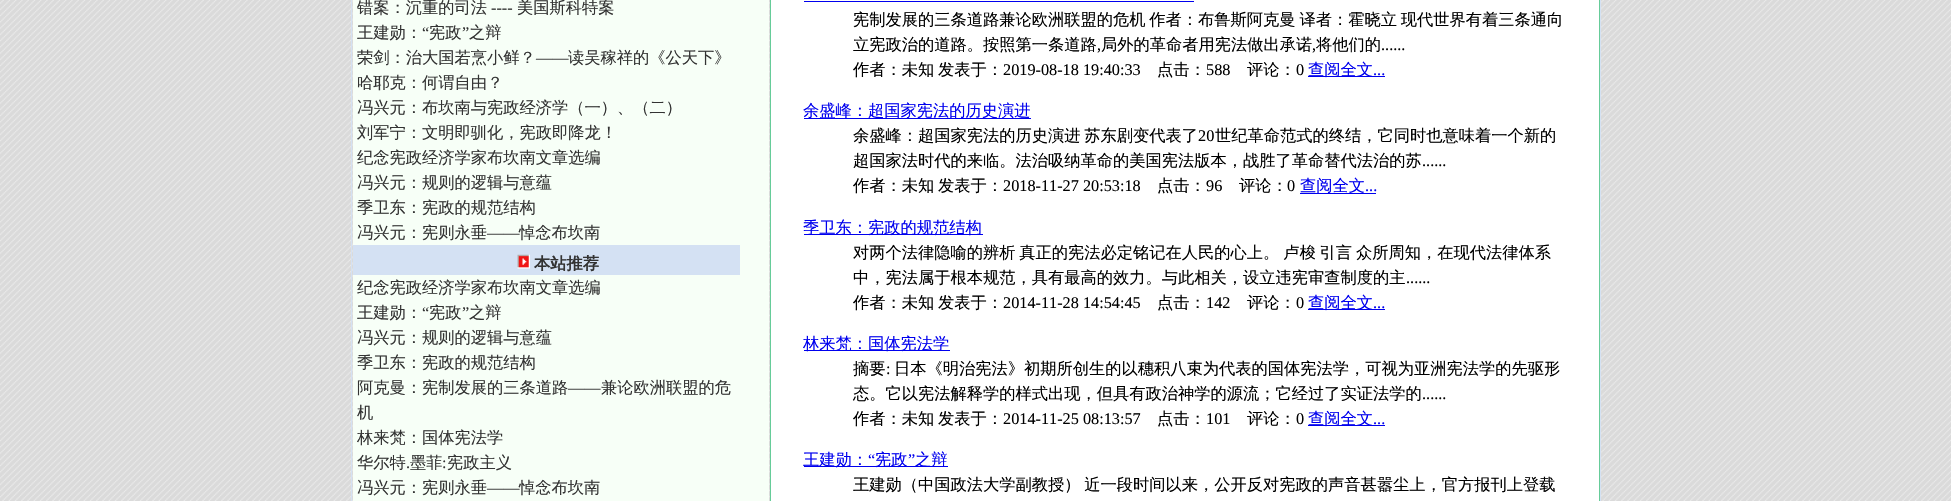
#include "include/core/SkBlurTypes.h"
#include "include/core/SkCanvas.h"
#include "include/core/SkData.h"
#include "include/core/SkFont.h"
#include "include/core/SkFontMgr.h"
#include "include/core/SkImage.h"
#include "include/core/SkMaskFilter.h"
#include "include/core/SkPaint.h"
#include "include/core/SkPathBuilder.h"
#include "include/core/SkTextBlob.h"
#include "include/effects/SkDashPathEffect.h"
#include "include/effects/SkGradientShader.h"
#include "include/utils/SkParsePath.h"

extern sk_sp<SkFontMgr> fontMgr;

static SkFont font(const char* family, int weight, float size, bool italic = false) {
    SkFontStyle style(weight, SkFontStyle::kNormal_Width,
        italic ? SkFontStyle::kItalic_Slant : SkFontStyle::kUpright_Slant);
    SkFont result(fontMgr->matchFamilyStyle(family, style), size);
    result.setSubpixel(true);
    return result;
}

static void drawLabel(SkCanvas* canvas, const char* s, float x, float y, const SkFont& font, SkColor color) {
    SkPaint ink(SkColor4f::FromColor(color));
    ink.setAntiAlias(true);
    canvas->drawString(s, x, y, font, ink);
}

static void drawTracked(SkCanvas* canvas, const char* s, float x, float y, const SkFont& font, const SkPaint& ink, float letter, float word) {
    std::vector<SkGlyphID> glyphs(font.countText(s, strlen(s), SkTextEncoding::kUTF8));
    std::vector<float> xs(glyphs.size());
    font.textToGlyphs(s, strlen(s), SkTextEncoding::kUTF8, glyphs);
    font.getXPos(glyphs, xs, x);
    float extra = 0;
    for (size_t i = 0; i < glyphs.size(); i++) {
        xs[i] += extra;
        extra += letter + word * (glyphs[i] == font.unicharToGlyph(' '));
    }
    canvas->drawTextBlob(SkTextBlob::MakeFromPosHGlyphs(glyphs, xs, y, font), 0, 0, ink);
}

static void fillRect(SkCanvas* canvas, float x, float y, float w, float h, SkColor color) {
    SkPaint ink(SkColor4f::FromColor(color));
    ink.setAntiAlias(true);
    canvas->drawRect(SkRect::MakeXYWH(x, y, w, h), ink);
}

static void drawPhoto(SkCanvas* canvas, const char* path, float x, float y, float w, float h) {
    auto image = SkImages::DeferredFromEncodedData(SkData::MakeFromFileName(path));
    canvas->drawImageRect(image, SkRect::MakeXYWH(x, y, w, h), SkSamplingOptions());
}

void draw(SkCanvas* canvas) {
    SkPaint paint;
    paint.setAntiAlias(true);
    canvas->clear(0xFFFFFFFF);
    drawPhoto(canvas, "assets/img1.png", 0, 0, 1951, 501);
    paint.setStroke(true);
    paint.setStrokeWidth(1);
    paint.setColor(0xFFD4E1F3);
    canvas->drawRect(SkRect::MakeXYWH(351.5f, -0.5f, 1249, 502), paint);
    fillRect(canvas, 740, 0, 29, 501, 0xFFF7FFF7);
    fillRect(canvas, 353, 0, 387, 245, 0xFFF7FFF7);
    SkFont font1 = font("WenQuanYi Zen Hei", 500, 16.25f);
    drawLabel(canvas, "错案：沉重的司法", 357, 13, font1, 0xFF333333);
    SkFont font2 = font("Liberation Serif", 400, 16.25f);
    drawLabel(canvas, "----", 491, 13, font2, 0xFF333333);
    drawLabel(canvas, "美国斯科特案", 517, 13, font1, 0xFF333333);
    drawLabel(canvas, "王建勋：", 357, 38, font1, 0xFF333333);
    drawLabel(canvas, "“", 422, 38, font2, 0xFF333333);
    drawLabel(canvas, "宪政", 429, 38, font1, 0xFF333333);
    drawLabel(canvas, "”", 462, 38, font2, 0xFF333333);
    drawLabel(canvas, "之辩", 469, 38, font1, 0xFF333333);
    drawLabel(canvas, "荣剑：治大国若烹小鲜？", 357, 63, font1, 0xFF333333);
    drawLabel(canvas, "——", 536, 63, font2, 0xFF333333);
    drawLabel(canvas, "读吴稼祥的《公天下》", 568, 63, font1, 0xFF333333);
    drawLabel(canvas, "哈耶克：何谓自由？", 357, 88, font1, 0xFF333333);
    drawLabel(canvas, "冯兴元：布坎南与宪政经济学（一）、（二）", 357, 113, font1, 0xFF333333);
    drawLabel(canvas, "刘军宁：文明即驯化，宪政即降龙！", 357, 138, font1, 0xFF333333);
    drawLabel(canvas, "纪念宪政经济学家布坎南文章选编", 357, 163, font1, 0xFF333333);
    drawLabel(canvas, "冯兴元：规则的逻辑与意蕴", 357, 188, font1, 0xFF333333);
    drawLabel(canvas, "季卫东：宪政的规范结构", 357, 213, font1, 0xFF333333);
    drawLabel(canvas, "冯兴元：宪则永垂", 357, 238, font1, 0xFF333333);
    drawLabel(canvas, "——", 487, 238, font2, 0xFF333333);
    drawLabel(canvas, "悼念布坎南", 519, 238, font1, 0xFF333333);
    fillRect(canvas, 353, 245, 387, 30, 0xFFD4E1F3);
    drawPhoto(canvas, "assets/img2.png", 517, 254, 13, 15);
    SkFont font3 = font("WenQuanYi Zen Hei", 700, 16.25f);
    drawLabel(canvas, "本站推荐", 534, 269, font3, 0xFF333333);
    fillRect(canvas, 353, 275, 387, 226, 0xFFF7FFF7);
    drawLabel(canvas, "纪念宪政经济学家布坎南文章选编", 357, 293, font1, 0xFF333333);
    drawLabel(canvas, "王建勋：", 357, 318, font1, 0xFF333333);
    drawLabel(canvas, "“", 422, 318, font2, 0xFF333333);
    drawLabel(canvas, "宪政", 429, 318, font1, 0xFF333333);
    drawLabel(canvas, "”", 462, 318, font2, 0xFF333333);
    drawLabel(canvas, "之辩", 469, 318, font1, 0xFF333333);
    drawLabel(canvas, "冯兴元：规则的逻辑与意蕴", 357, 343, font1, 0xFF333333);
    drawLabel(canvas, "季卫东：宪政的规范结构", 357, 368, font1, 0xFF333333);
    drawLabel(canvas, "阿克曼：宪制发展的三条道路", 357, 393, font1, 0xFF333333);
    drawLabel(canvas, "——", 568, 393, font2, 0xFF333333);
    drawLabel(canvas, "兼论欧洲联盟的危", 601, 393, font1, 0xFF333333);
    drawLabel(canvas, "机", 357, 418, font1, 0xFF333333);
    drawLabel(canvas, "林来梵：国体宪法学", 357, 443, font1, 0xFF333333);
    drawLabel(canvas, "华尔特", 357, 468, font1, 0xFF333333);
    drawLabel(canvas, ".", 406, 468, font2, 0xFF333333);
    drawLabel(canvas, "墨菲", 410, 468, font1, 0xFF333333);
    drawLabel(canvas, ":", 442, 468, font2, 0xFF333333);
    drawLabel(canvas, "宪政主义", 447, 468, font1, 0xFF333333);
    drawLabel(canvas, "冯兴元：宪则永垂", 357, 493, font1, 0xFF333333);
    drawLabel(canvas, "——", 487, 493, font2, 0xFF333333);
    drawLabel(canvas, "悼念布坎南", 519, 493, font1, 0xFF333333);
    paint.setStroke(false);
    paint.setColor(0xFFFFFFFF);
    canvas->drawRect(SkRect::MakeXYWH(770.5f, -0.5f, 829, 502), paint);
    paint.setStroke(true);
    paint.setColor(0xFF66CC99);
    canvas->drawRect(SkRect::MakeXYWH(770.5f, -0.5f, 829, 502), paint);
    fillRect(canvas, 804, 1, 390, 1, 0xFF0000EE);
    paint.setStroke(false);
    paint.setColor(0xFF000000);
    drawTracked(canvas, "宪制发展的三条道路兼论欧洲联盟的危机 作者：布鲁斯阿克曼 译者：霍晓立 现代世界有着三条通向", 853, 25, font1, paint, 0, -1);
    drawLabel(canvas, "立宪政治的道路。按照第一条道路", 853, 50, font1, 0xFF000000);
    drawLabel(canvas, ",", 1097, 50, font2, 0xFF000000);
    drawLabel(canvas, "局外的革命者用宪法做出承诺", 1101, 50, font1, 0xFF000000);
    drawLabel(canvas, ",", 1312, 50, font2, 0xFF000000);
    drawLabel(canvas, "将他们的", 1316, 50, font1, 0xFF000000);
    drawLabel(canvas, "......", 1381, 50, font2, 0xFF000000);
    drawLabel(canvas, "作者：未知", 853, 75, font1, 0xFF000000);
    drawLabel(canvas, "发表于：", 938, 75, font1, 0xFF000000);
    drawLabel(canvas, "2019-08-18 19:40:33", 1003, 75, font2, 0xFF000000);
    drawLabel(canvas, "点击：", 1157, 75, font1, 0xFF000000);
    drawLabel(canvas, "588", 1206, 75, font2, 0xFF000000);
    drawLabel(canvas, "评论：", 1247, 75, font1, 0xFF000000);
    drawLabel(canvas, "0", 1296, 75, font2, 0xFF000000);
    fillRect(canvas, 1308, 76, 77, 1, 0xFF0000EE);
    drawLabel(canvas, "查阅全文", 1308, 75, font1, 0xFF0000EE);
    drawLabel(canvas, "...", 1373, 75, font2, 0xFF0000EE);
    fillRect(canvas, 804, 118, 227, 1, 0xFF0000EE);
    drawLabel(canvas, "余盛峰：超国家宪法的历史演进", 803, 116, font1, 0xFF0000EE);
    drawTracked(canvas, "余盛峰：超国家宪法的历史演进 苏东剧变代表了", 853, 141, font1, paint, 0, -1);
    drawLabel(canvas, "20", 1198, 141, font2, 0xFF000000);
    drawLabel(canvas, "世纪革命范式的终结，它同时也意味着一个新的", 1215, 141, font1, 0xFF000000);
    drawLabel(canvas, "超国家法时代的来临。法治吸纳革命的美国宪法版本，战胜了革命替代法治的苏", 853, 166, font1, 0xFF000000);
    drawLabel(canvas, "......", 1422, 166, font2, 0xFF000000);
    drawLabel(canvas, "作者：未知", 853, 191, font1, 0xFF000000);
    drawLabel(canvas, "发表于：", 938, 191, font1, 0xFF000000);
    drawLabel(canvas, "2018-11-27 20:53:18", 1003, 191, font2, 0xFF000000);
    drawLabel(canvas, "点击：", 1157, 191, font1, 0xFF000000);
    drawLabel(canvas, "96", 1206, 191, font2, 0xFF000000);
    drawLabel(canvas, "评论：", 1239, 191, font1, 0xFF000000);
    drawLabel(canvas, "0", 1287, 191, font2, 0xFF000000);
    fillRect(canvas, 1300, 193, 76, 1, 0xFF0000EE);
    drawLabel(canvas, "查阅全文", 1300, 191, font1, 0xFF0000EE);
    drawLabel(canvas, "...", 1365, 191, font2, 0xFF0000EE);
    fillRect(canvas, 804, 234, 179, 1, 0xFF0000EE);
    drawLabel(canvas, "季卫东：宪政的规范结构", 803, 233, font1, 0xFF0000EE);
    drawTracked(canvas, "对两个法律隐喻的辨析 真正的宪法必定铭记在人民的心上。 卢梭 引言 众所周知，在现代法律体系", 853, 258, font1, paint, 0, -1);
    drawLabel(canvas, "中，宪法属于根本规范，具有最高的效力。与此相关，设立违宪审查制度的主", 853, 283, font1, 0xFF000000);
    drawLabel(canvas, "......", 1406, 283, font2, 0xFF000000);
    drawLabel(canvas, "作者：未知", 853, 308, font1, 0xFF000000);
    drawLabel(canvas, "发表于：", 938, 308, font1, 0xFF000000);
    drawLabel(canvas, "2014-11-28 14:54:45", 1003, 308, font2, 0xFF000000);
    drawLabel(canvas, "点击：", 1157, 308, font1, 0xFF000000);
    drawLabel(canvas, "142", 1206, 308, font2, 0xFF000000);
    drawLabel(canvas, "评论：", 1247, 308, font1, 0xFF000000);
    drawLabel(canvas, "0", 1296, 308, font2, 0xFF000000);
    fillRect(canvas, 1308, 309, 77, 1, 0xFF0000EE);
    drawLabel(canvas, "查阅全文", 1308, 308, font1, 0xFF0000EE);
    drawLabel(canvas, "...", 1373, 308, font2, 0xFF0000EE);
    fillRect(canvas, 804, 350, 146, 1, 0xFF0000EE);
    drawLabel(canvas, "林来梵：国体宪法学", 803, 349, font1, 0xFF0000EE);
    drawLabel(canvas, "摘要", 853, 374, font1, 0xFF000000);
    drawLabel(canvas, ":", 886, 374, font2, 0xFF000000);
    drawLabel(canvas, "日本《明治宪法》初期所创生的以穗积八束为代表的国体宪法学，可视为亚洲宪法学的先驱形", 894, 374, font1, 0xFF000000);
    drawLabel(canvas, "态。它以宪法解释学的样式出现，但具有政治神学的源流；它经过了实证法学的", 853, 399, font1, 0xFF000000);
    drawLabel(canvas, "......", 1422, 399, font2, 0xFF000000);
    drawLabel(canvas, "作者：未知", 853, 424, font1, 0xFF000000);
    drawLabel(canvas, "发表于：", 938, 424, font1, 0xFF000000);
    drawLabel(canvas, "2014-11-25 08:13:57", 1003, 424, font2, 0xFF000000);
    drawLabel(canvas, "点击：", 1157, 424, font1, 0xFF000000);
    drawLabel(canvas, "101", 1206, 424, font2, 0xFF000000);
    drawLabel(canvas, "评论：", 1247, 424, font1, 0xFF000000);
    drawLabel(canvas, "0", 1296, 424, font2, 0xFF000000);
    fillRect(canvas, 1308, 425, 77, 1, 0xFF0000EE);
    drawLabel(canvas, "查阅全文", 1308, 424, font1, 0xFF0000EE);
    drawLabel(canvas, "...", 1373, 424, font2, 0xFF0000EE);
    fillRect(canvas, 804, 466, 144, 1, 0xFF0000EE);
    drawLabel(canvas, "王建勋：", 803, 465, font1, 0xFF0000EE);
    drawLabel(canvas, "“", 868, 465, font2, 0xFF0000EE);
    drawLabel(canvas, "宪政", 875, 465, font1, 0xFF0000EE);
    drawLabel(canvas, "”", 908, 465, font2, 0xFF0000EE);
    drawLabel(canvas, "之辩", 915, 465, font1, 0xFF0000EE);
    drawTracked(canvas, "王建勋（中国政法大学副教授） 近一段时间以来，公开反对宪政的声音甚嚣尘上，官方报刊上登载", 853, 490, font1, paint, 0, -1);
}
